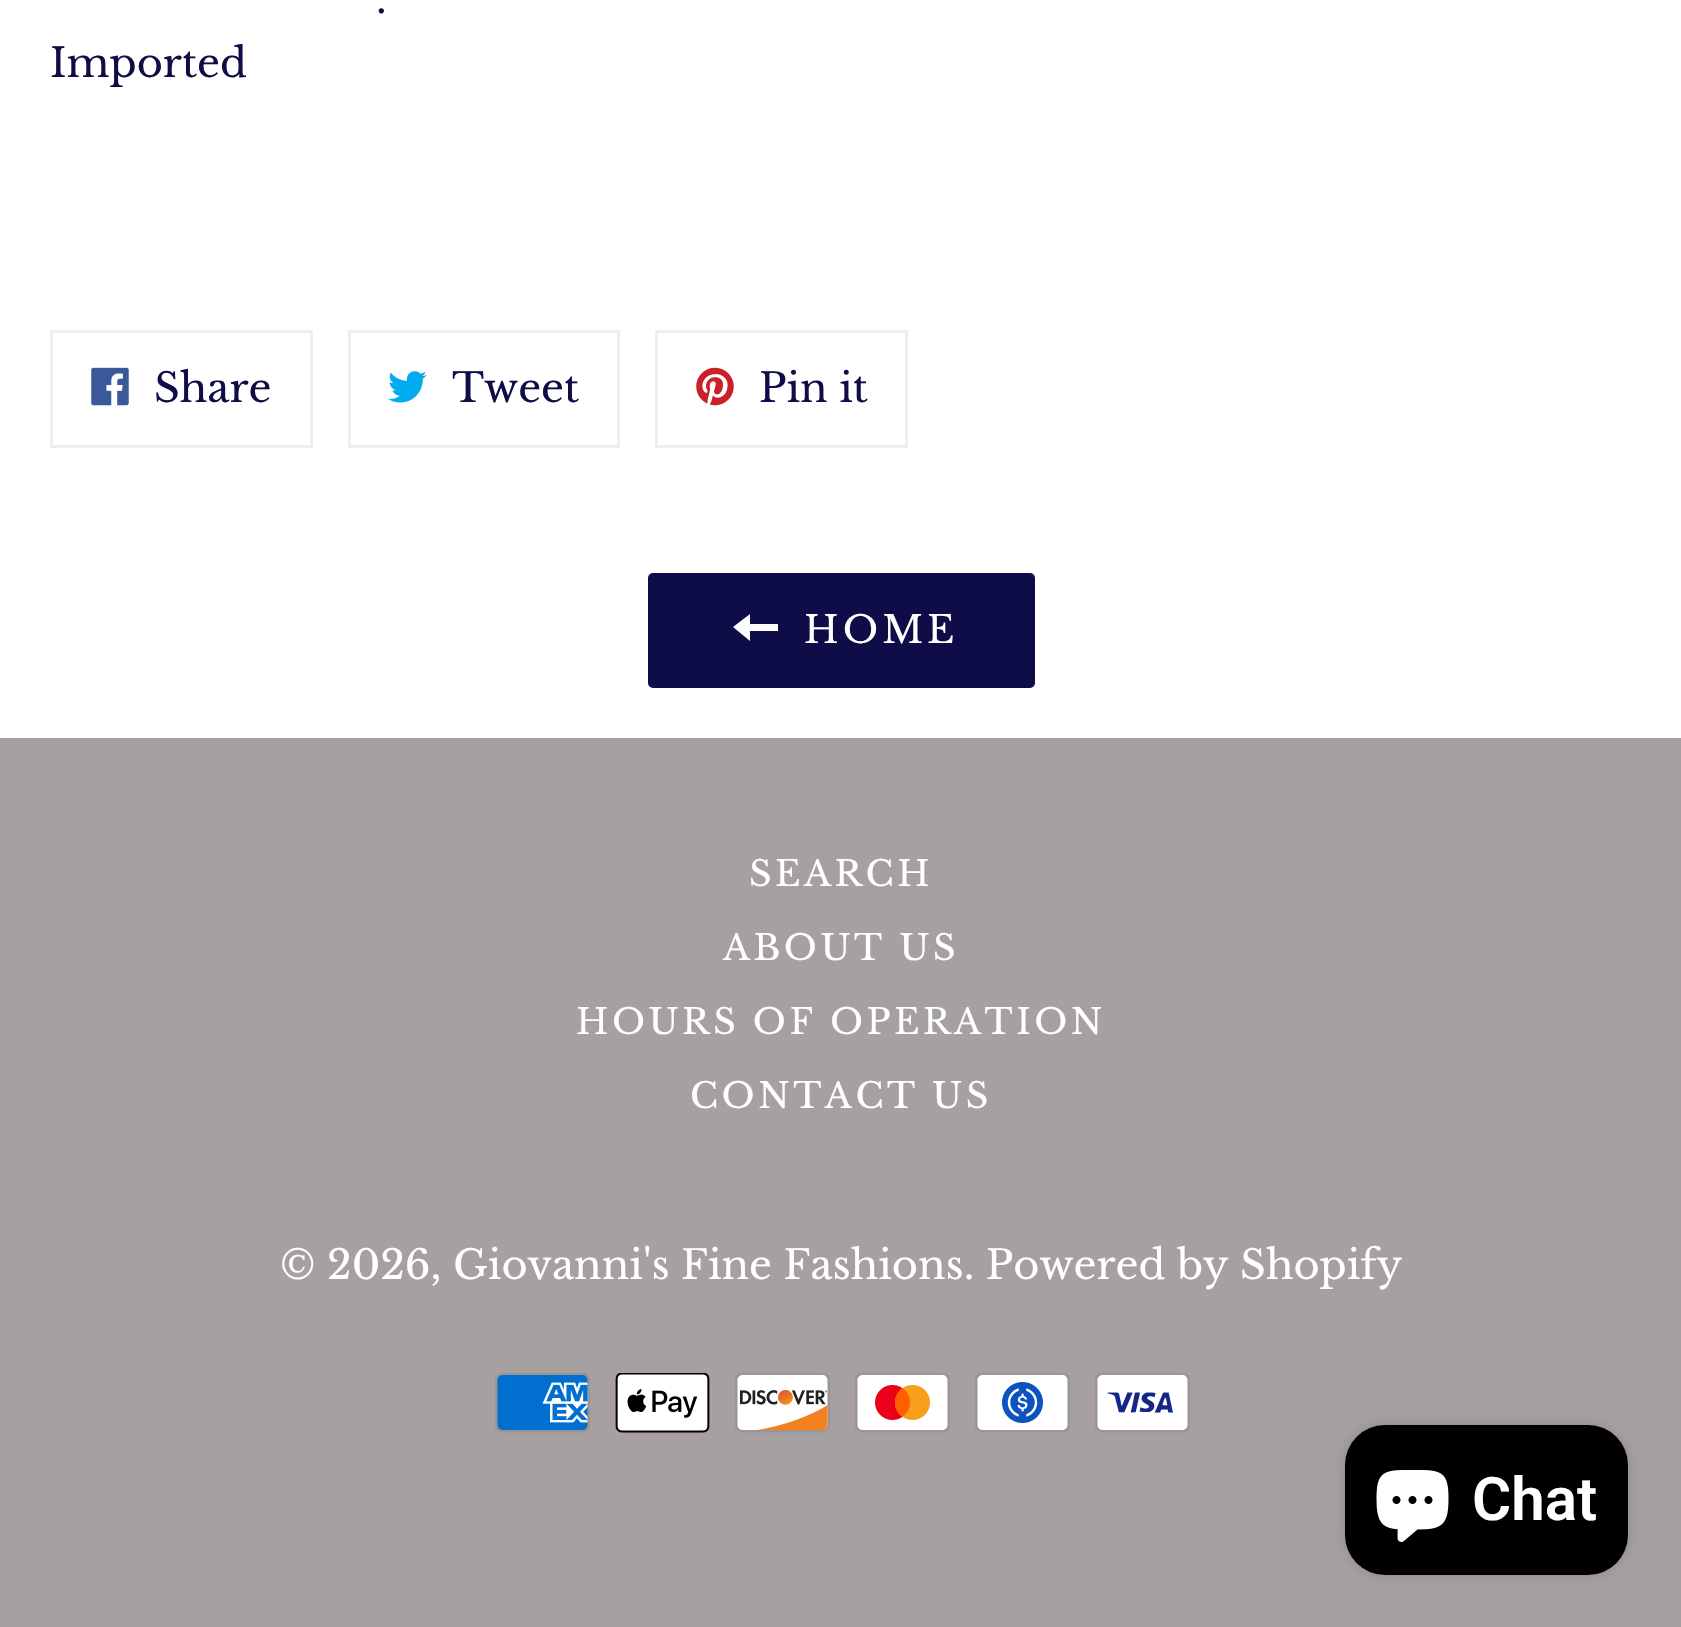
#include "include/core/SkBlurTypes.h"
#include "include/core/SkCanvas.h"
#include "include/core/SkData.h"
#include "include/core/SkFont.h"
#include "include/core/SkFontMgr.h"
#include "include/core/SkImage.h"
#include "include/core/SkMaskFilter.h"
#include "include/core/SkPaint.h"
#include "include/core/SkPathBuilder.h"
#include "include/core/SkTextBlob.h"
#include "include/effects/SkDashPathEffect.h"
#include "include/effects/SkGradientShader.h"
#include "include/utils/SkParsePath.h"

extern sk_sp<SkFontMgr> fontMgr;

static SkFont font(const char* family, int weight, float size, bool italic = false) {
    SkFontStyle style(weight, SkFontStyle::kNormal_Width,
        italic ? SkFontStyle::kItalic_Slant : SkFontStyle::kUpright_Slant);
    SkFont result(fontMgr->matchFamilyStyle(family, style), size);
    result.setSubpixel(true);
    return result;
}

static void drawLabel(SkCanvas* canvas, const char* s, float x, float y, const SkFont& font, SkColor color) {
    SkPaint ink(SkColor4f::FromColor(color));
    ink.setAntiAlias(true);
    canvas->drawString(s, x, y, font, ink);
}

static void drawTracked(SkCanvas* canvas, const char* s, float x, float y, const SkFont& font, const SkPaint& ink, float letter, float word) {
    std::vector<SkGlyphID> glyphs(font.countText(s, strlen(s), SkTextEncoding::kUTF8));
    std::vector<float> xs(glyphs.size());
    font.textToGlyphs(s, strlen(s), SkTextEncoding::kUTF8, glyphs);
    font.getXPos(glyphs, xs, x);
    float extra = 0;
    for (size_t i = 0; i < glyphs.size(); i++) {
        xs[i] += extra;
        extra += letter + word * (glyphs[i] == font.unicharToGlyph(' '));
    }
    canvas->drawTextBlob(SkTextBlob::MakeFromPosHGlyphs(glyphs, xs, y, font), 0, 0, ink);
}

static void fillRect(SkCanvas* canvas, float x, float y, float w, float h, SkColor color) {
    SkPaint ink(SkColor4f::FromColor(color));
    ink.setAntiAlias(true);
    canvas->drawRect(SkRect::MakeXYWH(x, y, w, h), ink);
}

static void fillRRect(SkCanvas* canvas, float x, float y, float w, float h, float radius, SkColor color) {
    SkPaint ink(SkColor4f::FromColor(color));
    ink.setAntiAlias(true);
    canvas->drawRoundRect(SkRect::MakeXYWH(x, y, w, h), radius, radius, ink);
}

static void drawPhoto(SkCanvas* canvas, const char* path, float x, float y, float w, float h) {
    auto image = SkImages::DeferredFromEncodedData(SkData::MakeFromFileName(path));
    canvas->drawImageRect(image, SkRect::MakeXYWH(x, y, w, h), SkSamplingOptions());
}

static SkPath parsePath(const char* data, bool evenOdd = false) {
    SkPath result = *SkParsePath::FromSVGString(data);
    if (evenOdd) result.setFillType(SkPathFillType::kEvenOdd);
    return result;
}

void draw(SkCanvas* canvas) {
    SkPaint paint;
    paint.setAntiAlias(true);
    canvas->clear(0xFFFFFFFF);
    SkFont font1 = font("Libre Baskerville", 400, 40);
    drawLabel(canvas, ".", 376, 13, font1, 0xFF0E0D47);
    drawLabel(canvas, "Imported", 50, 77, font1, 0xFF0E0D47);
    paint.setStroke(true);
    paint.setStrokeWidth(3);
    paint.setColor(0xFFECEFF1);
    canvas->drawRect(SkRect::MakeXYWH(51.5f, 331.5f, 260, 115), paint);
    drawPhoto(canvas, "assets/img1.png", 91, 367, 38, 39);
    drawLabel(canvas, "Share", 154, 402, font1, 0xFF0E0D47);
    canvas->drawRect(SkRect::MakeXYWH(349.5f, 331.5f, 269, 115), paint);
    drawPhoto(canvas, "assets/img2.png", 388, 371, 39, 32);
    drawLabel(canvas, "Tweet", 452, 402, font1, 0xFF0E0D47);
    canvas->drawRect(SkRect::MakeXYWH(656.5f, 331.5f, 250, 115), paint);
    drawPhoto(canvas, "assets/img3.png", 696, 367, 38, 39);
    drawLabel(canvas, "Pin it", 759, 402, font1, 0xFF0E0D47);
    fillRRect(canvas, 648, 573, 387, 115, 5, 0xFF0E0D47);
    paint.setStroke(false);
    paint.setColor(0xFFFFFFFF);
    canvas->drawPath(parsePath("M750 624V614L733 627L750 641V631H778V624Z"), paint);
    SkFont font2 = font("Libre Baskerville", 400, 37.5f);
    drawTracked(canvas, "HOME", 804, 643, font2, paint, 4, 0);
    fillRect(canvas, 0, 738, 1681, 889, 0xFFA6A0A1);
    SkFont font3 = font("Libre Baskerville", 400, 35);
    drawTracked(canvas, "SEARCH", 749, 886, font3, paint, 3.5f, 0);
    drawTracked(canvas, "ABOUT US", 723, 960, font3, paint, 3.5f, 0);
    drawTracked(canvas, "HOURS OF OPERATION", 576, 1034, font3, paint, 3.5f, 0);
    drawTracked(canvas, "CONTACT US", 690, 1108, font3, paint, 3.5f, 0);
    drawLabel(canvas, "© 2026, Giovanni's Fine Fashions. Powered by Shopify", 280, 1279, font1, 0xFFFFFFFF);
    drawPhoto(canvas, "assets/img4.png", 495, 1373, 95, 60);
    drawPhoto(canvas, "assets/img5.png", 615, 1373, 95, 60);
    drawPhoto(canvas, "assets/img6.png", 735, 1373, 95, 60);
    drawPhoto(canvas, "assets/img7.png", 855, 1373, 95, 60);
    drawPhoto(canvas, "assets/img8.png", 975, 1373, 95, 59);
    drawPhoto(canvas, "assets/img9.png", 1095, 1373, 95, 60);
    paint.setColor(0x26000000);
    paint.setMaskFilter(SkMaskFilter::MakeBlur(kNormal_SkBlurStyle, 6));
    canvas->drawRoundRect(SkRect::MakeXYWH(1345, 1425, 283, 150), 40, 40, paint);
    paint.setMaskFilter(nullptr);
    fillRRect(canvas, 1345, 1425, 283, 150, 40, 0xFF000000);
    drawPhoto(canvas, "assets/img10.png", 1376, 1470, 73, 72);
    SkFont font4 = font("Roboto", 600, 60);
    drawLabel(canvas, "Chat", 1472, 1520, font4, 0xFFFFFFFF);
}
